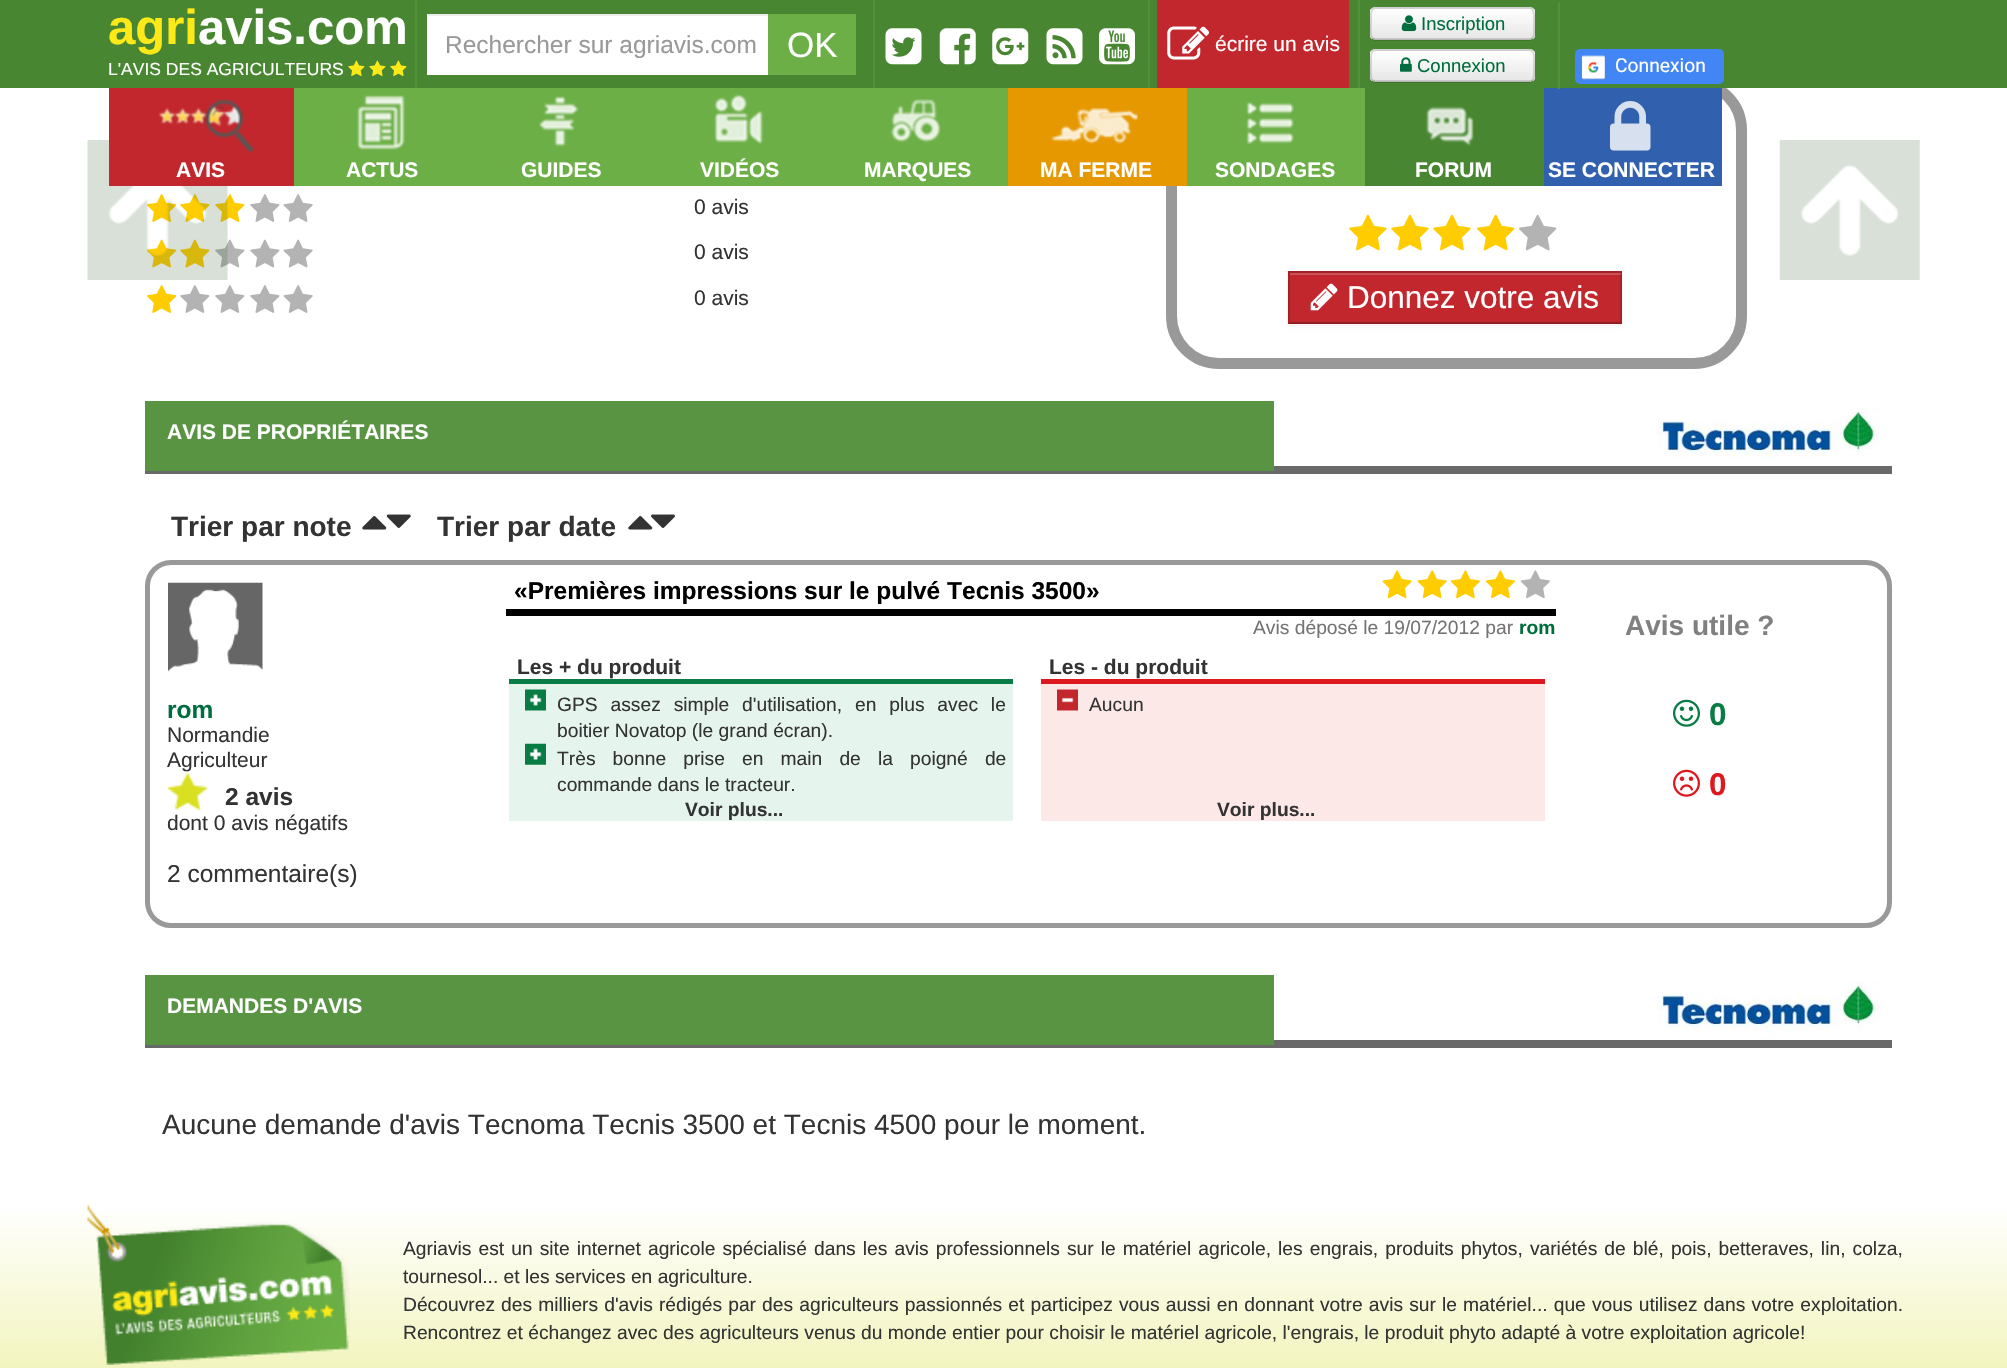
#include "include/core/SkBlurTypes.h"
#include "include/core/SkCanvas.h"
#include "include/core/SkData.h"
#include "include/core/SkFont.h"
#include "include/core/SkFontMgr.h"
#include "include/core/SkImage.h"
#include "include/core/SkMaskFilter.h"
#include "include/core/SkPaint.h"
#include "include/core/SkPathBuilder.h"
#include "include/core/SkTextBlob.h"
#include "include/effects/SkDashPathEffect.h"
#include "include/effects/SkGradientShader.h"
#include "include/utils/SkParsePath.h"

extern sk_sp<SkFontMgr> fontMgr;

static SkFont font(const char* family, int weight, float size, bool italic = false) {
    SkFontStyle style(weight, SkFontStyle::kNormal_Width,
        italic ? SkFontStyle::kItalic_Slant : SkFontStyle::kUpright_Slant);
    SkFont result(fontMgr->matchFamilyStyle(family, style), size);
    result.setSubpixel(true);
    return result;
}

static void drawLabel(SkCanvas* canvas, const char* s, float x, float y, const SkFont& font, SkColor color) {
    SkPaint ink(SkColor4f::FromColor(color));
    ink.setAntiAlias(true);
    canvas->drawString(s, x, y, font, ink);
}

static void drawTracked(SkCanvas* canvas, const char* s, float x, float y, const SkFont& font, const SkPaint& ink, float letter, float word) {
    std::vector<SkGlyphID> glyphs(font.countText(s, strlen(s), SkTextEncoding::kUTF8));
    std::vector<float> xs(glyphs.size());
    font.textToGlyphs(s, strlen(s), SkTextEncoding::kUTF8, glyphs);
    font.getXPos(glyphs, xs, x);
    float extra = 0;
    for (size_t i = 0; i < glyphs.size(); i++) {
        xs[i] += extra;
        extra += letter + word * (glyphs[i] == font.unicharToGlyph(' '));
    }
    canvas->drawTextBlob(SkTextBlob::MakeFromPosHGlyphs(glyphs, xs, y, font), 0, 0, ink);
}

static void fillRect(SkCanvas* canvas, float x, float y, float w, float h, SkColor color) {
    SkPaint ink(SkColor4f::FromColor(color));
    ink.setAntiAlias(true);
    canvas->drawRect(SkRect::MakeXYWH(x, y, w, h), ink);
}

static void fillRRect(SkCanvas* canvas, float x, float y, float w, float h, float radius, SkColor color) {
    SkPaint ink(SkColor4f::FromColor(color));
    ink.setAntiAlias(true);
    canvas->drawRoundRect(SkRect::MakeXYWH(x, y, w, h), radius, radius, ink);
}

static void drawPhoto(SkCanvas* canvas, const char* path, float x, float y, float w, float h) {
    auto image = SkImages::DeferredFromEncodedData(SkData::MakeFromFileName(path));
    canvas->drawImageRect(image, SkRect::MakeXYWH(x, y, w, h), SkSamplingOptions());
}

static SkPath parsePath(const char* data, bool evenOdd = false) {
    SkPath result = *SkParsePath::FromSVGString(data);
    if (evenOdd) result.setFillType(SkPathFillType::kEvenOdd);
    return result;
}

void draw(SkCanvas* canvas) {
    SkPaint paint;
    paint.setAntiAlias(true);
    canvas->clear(0xFFFFFFFF);
    paint.setStroke(true);
    paint.setStrokeWidth(11);
    paint.setColor(0xFF999999);
    canvas->drawRoundRect(SkRect::MakeXYWH(1171.5f, 82.5f, 570, 281), 47.5f, 47.5f, paint);
    fillRect(canvas, 0, 0, 2007, 88, 0xFF488631);
    SkFont font1 = font("Liberation Sans", 700, 49);
    drawLabel(canvas, "agri", 108, 44, font1, 0xFFFDE918);
    drawLabel(canvas, "avis.com", 198, 44, font1, 0xFFFFFFFF);
    SkFont font2 = font("Liberation Sans", 400, 17.5f);
    drawLabel(canvas, "L'AVIS DES AGRICULTEURS", 108, 75, font2, 0xFFFFFFFF);
    drawPhoto(canvas, "assets/img1.png", 348, 60, 17, 16);
    drawPhoto(canvas, "assets/img1.png", 369, 60, 17, 16);
    drawPhoto(canvas, "assets/img1.png", 390, 60, 17, 16);
    fillRect(canvas, 415, 0, 2, 88, 0xFF529337);
    fillRect(canvas, 427, 16, 341, 59, 0xFFFFFFFF);
    fillRect(canvas, 427, 14, 341, 2, 0xFFECECEC);
    SkFont font3 = font("Liberation Sans", 400, 24.5f);
    drawLabel(canvas, "Rechercher sur agriavis.com", 445, 53, font3, 0xFF999999);
    fillRect(canvas, 768, 14, 88, 61, 0xFF6CAF46);
    SkFont font4 = font("Liberation Sans", 400, 35);
    drawLabel(canvas, "OK", 787, 57, font4, 0xFFFFFFFF);
    fillRect(canvas, 873, 0, 2, 88, 0xFF529337);
    drawPhoto(canvas, "assets/img2.png", 885, 28, 37, 37);
    drawPhoto(canvas, "assets/img3.png", 939, 28, 37, 37);
    drawPhoto(canvas, "assets/img4.png", 992, 28, 37, 37);
    drawPhoto(canvas, "assets/img5.png", 1046, 28, 37, 37);
    drawPhoto(canvas, "assets/img6.png", 1099, 28, 36, 37);
    fillRect(canvas, 1148, 0, 2, 88, 0xFF529337);
    fillRect(canvas, 1157, 0, 192, 88, 0xFFC2272D);
    drawPhoto(canvas, "assets/img7.png", 1167, 26, 42, 34);
    SkFont font5 = font("Liberation Sans", 400, 21);
    drawLabel(canvas, "écrire un avis", 1215, 51, font5, 0xFFFFFFFF);
    fillRect(canvas, 1358, 0, 2, 88, 0xFF529337);
    fillRRect(canvas, 1370, 7, 165, 33, 5, 0xFFF5F5F5);
    canvas->save();
    canvas->clipPath(parsePath("M1375 7H1530C1533 7 1535 9 1535 12V35C1535 38 1533 40 1530 40H1375C1372 40 1370 38 1370 35V12C1370 9 1372 7 1375 7Z"), true);
    paint.setStroke(false);
    {
        const SkColor colors[] = {0xFFFFFFFF, 0xFFE6E6E6};
        const float stops[] = {0, 1};
        const SkPoint ends[] = {{1453, 9}, {1453, 39}};
        paint.setShader(SkGradientShader::MakeLinear(ends, colors, stops, 2, SkTileMode::kClamp));
        paint.setAlpha(255);
    }
    canvas->drawRect(SkRect::MakeXYWH(1370, 9, 165, 30), paint);
    canvas->restore();
    paint.setStroke(true);
    paint.setStrokeWidth(1.8f);
    paint.setShader(nullptr);
    paint.setColor(0x40000000);
    canvas->drawPath(parsePath("M1532.5 38C1532 39 1530.5 39.5 1529.5 39.5H1375.5C1374.5 39.5 1373 39 1372.5 38"), paint);
    paint.setColor(0x26000000);
    canvas->drawPath(parsePath("M1372.5 38C1370 35.5 1371 27 1371 23.5V16C1371 13 1371 8 1375.5 8H1529.5C1534 8 1534 13 1534 16V23.5C1534 27 1535 35.5 1532.5 38"), paint);
    drawPhoto(canvas, "assets/img8.png", 1401, 15, 16, 17);
    SkFont font6 = font("Liberation Sans", 400, 18.5f);
    drawLabel(canvas, "Inscription", 1421, 30, font6, 0xFF006D3E);
    fillRRect(canvas, 1370, 49, 165, 33, 5, 0xFFF5F5F5);
    canvas->save();
    canvas->clipPath(parsePath("M1375 49H1530C1533 49 1535 51 1535 54V77C1535 80 1533 82 1530 82H1375C1372 82 1370 80 1370 77V54C1370 51 1372 49 1375 49Z"), true);
    paint.setStroke(false);
    {
        const SkColor colors[] = {0xFFFFFFFF, 0xFFE6E6E6};
        const float stops[] = {0, 1};
        const SkPoint ends[] = {{1453, 51}, {1453, 81}};
        paint.setShader(SkGradientShader::MakeLinear(ends, colors, stops, 2, SkTileMode::kClamp));
        paint.setAlpha(255);
    }
    canvas->drawRect(SkRect::MakeXYWH(1370, 51, 165, 30), paint);
    canvas->restore();
    paint.setStroke(true);
    paint.setShader(nullptr);
    paint.setColor(0x40000000);
    canvas->drawPath(parsePath("M1532.5 80C1532 81 1530.5 81.5 1529.5 81.5H1375.5C1374.5 81.5 1373 81 1372.5 80"), paint);
    paint.setColor(0x26000000);
    canvas->drawPath(parsePath("M1372.5 80C1370 77.5 1371 69 1371 65.5V58C1371 55 1371 50 1375.5 50H1529.5C1534 50 1534 55 1534 58V65.5C1534 69 1535 77.5 1532.5 80"), paint);
    drawPhoto(canvas, "assets/img9.png", 1400, 57, 12, 15);
    drawLabel(canvas, "Connexion", 1417, 72, font6, 0xFF006D3E);
    fillRect(canvas, 1544, 88, 178, 98, 0xFF3160AE);
    fillRect(canvas, 1558, 2, 2, 87, 0xFF529337);
    paint.setStroke(false);
    paint.setColor(0xFF4285F4);
    canvas->drawRoundRect(SkRect::MakeXYWH(1576, 50, 147, 33), 4, 4, paint);
    paint.setStroke(true);
    paint.setStrokeWidth(2);
    canvas->drawRoundRect(SkRect::MakeXYWH(1576, 50, 147, 33), 4, 4, paint);
    drawPhoto(canvas, "assets/img10.png", 1581, 55, 24, 25);
    SkFont font7 = font("Roboto", 400, 19.25f);
    drawLabel(canvas, "Connexion", 1615, 72, font7, 0xFFFFFFFF);
    drawPhoto(canvas, "assets/img22.png", 147, 194, 30, 28);
    drawPhoto(canvas, "assets/img23.png", 180, 194, 30, 28);
    drawPhoto(canvas, "assets/img23.png", 215, 194, 30, 28);
    drawPhoto(canvas, "assets/img26.png", 147, 239, 30, 29);
    drawPhoto(canvas, "assets/img27.png", 180, 239, 30, 29);
    drawPhoto(canvas, "assets/img28.png", 215, 239, 30, 29);
    drawPhoto(canvas, "assets/img11.png", 87, 140, 141, 140);
    fillRect(canvas, 109, 88, 185, 98, 0xFFC2272D);
    drawPhoto(canvas, "assets/img12.png", 158, 99, 97, 54);
    SkFont font8 = font("Liberation Sans", 700, 21);
    drawLabel(canvas, "AVIS", 176, 177, font8, 0xFFFFFFFF);
    fillRect(canvas, 294, 88, 714, 98, 0xFF6CAF46);
    drawPhoto(canvas, "assets/img13.png", 356, 95, 49, 55);
    drawLabel(canvas, "ACTUS", 346, 177, font8, 0xFFFFFFFF);
    drawPhoto(canvas, "assets/img14.png", 538, 95, 41, 52);
    drawLabel(canvas, "GUIDES", 521, 177, font8, 0xFFFFFFFF);
    drawPhoto(canvas, "assets/img15.png", 714, 94, 50, 51);
    drawLabel(canvas, "VIDÉOS", 700, 177, font8, 0xFFFFFFFF);
    drawPhoto(canvas, "assets/img16.png", 890, 99, 51, 44);
    drawLabel(canvas, "MARQUES", 864, 177, font8, 0xFFFFFFFF);
    fillRect(canvas, 1008, 88, 179, 98, 0xFFE69800);
    drawPhoto(canvas, "assets/img17.png", 1051, 107, 87, 37);
    drawLabel(canvas, "MA FERME", 1040, 177, font8, 0xFFFFFFFF);
    fillRect(canvas, 1187, 88, 178, 98, 0xFF6CAF46);
    drawPhoto(canvas, "assets/img18.png", 1246, 101, 48, 43);
    drawLabel(canvas, "SONDAGES", 1215, 177, font8, 0xFFFFFFFF);
    fillRect(canvas, 1365, 88, 179, 98, 0xFF488631);
    drawPhoto(canvas, "assets/img19.png", 1426, 106, 48, 40);
    drawLabel(canvas, "FORUM", 1415, 177, font8, 0xFFFFFFFF);
    drawPhoto(canvas, "assets/img20.png", 1610, 101, 41, 50);
    drawLabel(canvas, "SE CONNECTER", 1548, 177, font8, 0xFFFFFFFF);
    drawPhoto(canvas, "assets/img21.png", 1779, 140, 141, 140);
    drawPhoto(canvas, "assets/img24.png", 250, 194, 30, 28);
    drawPhoto(canvas, "assets/img25.png", 283, 194, 30, 28);
    drawLabel(canvas, "0 avis", 694, 214, font5, 0xFF333333);
    drawPhoto(canvas, "assets/img29.png", 250, 239, 30, 29);
    drawPhoto(canvas, "assets/img30.png", 283, 239, 30, 29);
    drawLabel(canvas, "0 avis", 694, 259, font5, 0xFF333333);
    drawPhoto(canvas, "assets/img22.png", 147, 285, 30, 28);
    drawPhoto(canvas, "assets/img31.png", 180, 285, 30, 28);
    drawPhoto(canvas, "assets/img31.png", 215, 285, 30, 28);
    drawPhoto(canvas, "assets/img24.png", 250, 285, 30, 28);
    drawPhoto(canvas, "assets/img25.png", 283, 285, 30, 28);
    drawLabel(canvas, "0 avis", 694, 305, font5, 0xFF333333);
    drawPhoto(canvas, "assets/img32.png", 1349, 214, 38, 37);
    drawPhoto(canvas, "assets/img32.png", 1391, 214, 38, 37);
    drawPhoto(canvas, "assets/img32.png", 1433, 214, 38, 37);
    drawPhoto(canvas, "assets/img33.png", 1477, 214, 38, 37);
    drawPhoto(canvas, "assets/img34.png", 1519, 214, 38, 37);
    paint.setStroke(false);
    paint.setColor(0x0D000000);
    paint.setMaskFilter(SkMaskFilter::MakeBlur(kNormal_SkBlurStyle, 2));
    canvas->drawRect(SkRect::MakeXYWH(1288, 273, 334, 53), paint);
    paint.setMaskFilter(nullptr);
    fillRect(canvas, 1288, 271, 334, 53, 0xFFC1272D);
    fillRect(canvas, 1290, 273, 331, 2, 0xFFCD5257);
    paint.setColor(0xFFA42126);
    canvas->drawPath(parsePath("M1288 271H1622L1620 273H1290Z"), paint);
    paint.setColor(0x26000000);
    canvas->drawPath(parsePath("M1622 271V324L1620 322V273Z"), paint);
    paint.setColor(0x40000000);
    canvas->drawPath(parsePath("M1622 324H1288L1290 322H1620Z"), paint);
    paint.setColor(0x26000000);
    canvas->drawPath(parsePath("M1288 324V271L1290 273V322Z"), paint);
    drawPhoto(canvas, "assets/img35.png", 1310, 283, 28, 28);
    SkFont font9 = font("Liberation Sans", 400, 31.5f);
    drawLabel(canvas, "Donnez votre avis", 1347, 308, font9, 0xFFFFFFFF);
    fillRect(canvas, 145, 466, 1747, 8, 0xFF696969);
    fillRect(canvas, 145, 401, 1129, 70, 0xFF589442);
    drawLabel(canvas, "AVIS DE PROPRIÉTAIRES", 167, 439, font8, 0xFFFFFFFF);
    drawPhoto(canvas, "assets/img36.png", 1657, 407, 222, 53);
    SkFont font10 = font("Liberation Sans", 700, 28);
    drawLabel(canvas, "Trier par note", 171, 536, font10, 0xFF333333);
    drawPhoto(canvas, "assets/img37.png", 362, 516, 25, 14);
    drawPhoto(canvas, "assets/img38.png", 386, 514, 25, 14);
    drawLabel(canvas, "Trier par date", 437, 536, font10, 0xFF333333);
    drawPhoto(canvas, "assets/img37.png", 628, 516, 25, 14);
    drawPhoto(canvas, "assets/img39.png", 651, 514, 24, 14);
    paint.setStroke(true);
    paint.setStrokeWidth(5);
    paint.setColor(0xFF999999);
    canvas->drawRoundRect(SkRect::MakeXYWH(147.5f, 562.5f, 1742, 363), 23.5f, 23.5f, paint);
    drawPhoto(canvas, "assets/img40.png", 168, 582, 95, 90);
    SkFont font11 = font("Liberation Sans", 700, 24.5f);
    drawLabel(canvas, "rom", 167, 718, font11, 0xFF006D3E);
    drawLabel(canvas, "Normandie", 167, 742, font5, 0xFF333333);
    drawLabel(canvas, "Agriculteur", 167, 767, font5, 0xFF333333);
    drawPhoto(canvas, "assets/img41.png", 168, 773, 41, 38);
    drawLabel(canvas, "2 avis", 225, 805, font11, 0xFF333333);
    drawLabel(canvas, "dont 0 avis négatifs", 167, 830, font5, 0xFF333333);
    drawLabel(canvas, "2 commentaire(s)", 167, 882, font3, 0xFF333333);
    fillRect(canvas, 506, 609, 1050, 7, 0xFF000000);
    drawLabel(canvas, "«Premières impressions sur le pulvé Tecnis 3500»", 514, 599, font11, 0xFF000000);
    drawPhoto(canvas, "assets/img42.png", 1382, 570, 30, 29);
    drawPhoto(canvas, "assets/img42.png", 1417, 570, 30, 29);
    drawPhoto(canvas, "assets/img43.png", 1450, 570, 30, 29);
    drawPhoto(canvas, "assets/img43.png", 1485, 570, 30, 29);
    drawPhoto(canvas, "assets/img44.png", 1520, 570, 30, 29);
    SkFont font12 = font("Liberation Sans", 400, 19.25f);
    drawLabel(canvas, "Avis déposé le 19/07/2012 par", 1253, 634, font12, 0xFF757373);
    SkFont font13 = font("Liberation Sans", 700, 19.25f);
    drawLabel(canvas, "rom", 1519, 634, font13, 0xFF006D3E);
    fillRect(canvas, 509, 679, 504, 5, 0xFF097C45);
    drawLabel(canvas, "Les + du produit", 517, 674, font8, 0xFF333333);
    fillRect(canvas, 509, 684, 504, 137, 0xFFE5F4ED);
    drawPhoto(canvas, "assets/img45.png", 525, 689, 21, 22);
    paint.setStroke(false);
    paint.setColor(0xFF333333);
    drawTracked(canvas, "GPS assez simple d'utilisation, en plus avec le", 557, 711, font12, paint, 0, 7.5f);
    drawLabel(canvas, "boitier Novatop (le grand écran).", 557, 737, font12, 0xFF333333);
    drawPhoto(canvas, "assets/img46.png", 525, 743, 21, 22);
    drawTracked(canvas, "Très bonne prise en main de la poigné de", 557, 765, font12, paint, 0, 11.75f);
    drawLabel(canvas, "commande dans le tracteur.", 557, 791, font12, 0xFF333333);
    drawLabel(canvas, "Voir plus...", 685, 816, font13, 0xFF333333);
    fillRect(canvas, 1041, 679, 504, 5, 0xFFDD181F);
    drawLabel(canvas, "Les - du produit", 1049, 674, font8, 0xFF333333);
    fillRect(canvas, 1041, 684, 504, 137, 0xFFFCE8E7);
    drawPhoto(canvas, "assets/img47.png", 1057, 689, 21, 22);
    drawLabel(canvas, "Aucun", 1089, 711, font12, 0xFF333333);
    drawLabel(canvas, "Voir plus...", 1217, 816, font13, 0xFF333333);
    drawLabel(canvas, "Avis utile ?", 1625, 635, font10, 0xFF808080);
    drawPhoto(canvas, "assets/img48.png", 1673, 699, 27, 28);
    SkFont font14 = font("Liberation Sans", 700, 31.5f);
    drawLabel(canvas, "0", 1709, 725, font14, 0xFF097C45);
    drawPhoto(canvas, "assets/img49.png", 1673, 769, 27, 28);
    drawLabel(canvas, "0", 1709, 795, font14, 0xFFDD181F);
    fillRect(canvas, 145, 1040, 1747, 8, 0xFF696969);
    fillRect(canvas, 145, 975, 1129, 70, 0xFF589442);
    drawLabel(canvas, "DEMANDES D'AVIS", 167, 1013, font8, 0xFFFFFFFF);
    drawPhoto(canvas, "assets/img36.png", 1657, 981, 222, 53);
    SkFont font15 = font("Liberation Sans", 400, 28);
    drawLabel(canvas, "Aucune demande d'avis Tecnoma Tecnis 3500 et Tecnis 4500 pour le moment.", 162, 1134, font15, 0xFF333333);
    {
        const SkColor colors[] = {0xFFFFFFFF, 0xFFCDD500};
        const float stops[] = {0, 1};
        const SkPoint ends[] = {{1004, 1204}, {1004, 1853}};
        paint.setShader(SkGradientShader::MakeLinear(ends, colors, stops, 2, SkTileMode::kClamp));
        paint.setAlpha(255);
    }
    canvas->drawRect(SkRect::MakeXYWH(0, 1210, 2007, 158), paint);
    drawPhoto(canvas, "assets/img50.png", 87, 1204, 263, 161);
    paint.setShader(nullptr);
    paint.setColor(0xFF333333);
    drawTracked(canvas, "Agriavis est un site internet agricole spécialisé dans les avis professionnels sur le matériel agricole, les engrais, produits phytos, variétés de blé, pois, betteraves, lin, colza,", 403, 1255, font12, paint, 0, 1.7f);
    drawLabel(canvas, "tournesol... et les services en agriculture.", 403, 1283, font12, 0xFF333333);
    drawTracked(canvas, "Découvrez des milliers d'avis rédigés par des agriculteurs passionnés et participez vous aussi en donnant votre avis sur le matériel... que vous utilisez dans votre exploitation.", 403, 1311, font12, paint, 0, 0.75f);
    drawLabel(canvas, "Rencontrez et échangez avec des agriculteurs venus du monde entier pour choisir le matériel agricole, l'engrais, le produit phyto adapté à votre exploitation agricole!", 403, 1339, font12, 0xFF333333);
}
